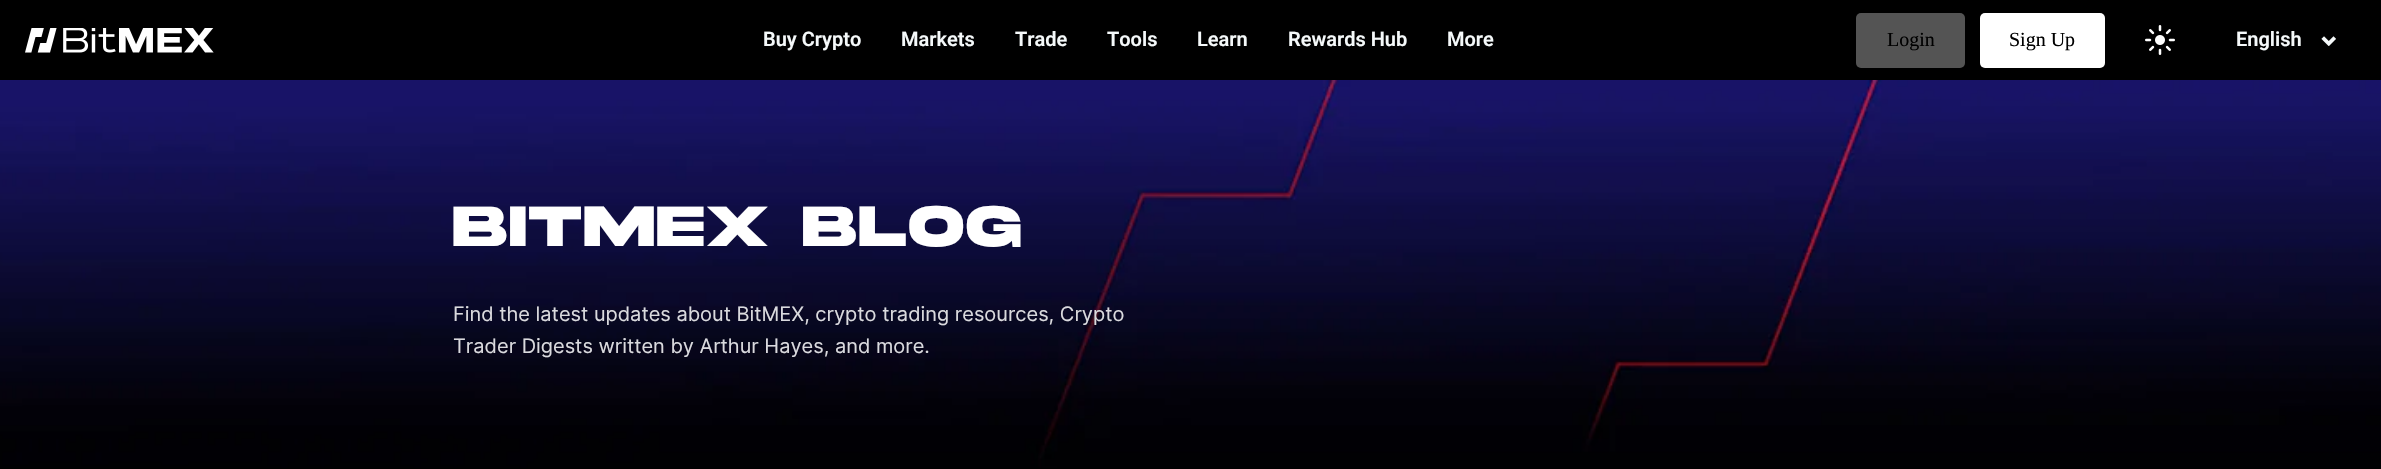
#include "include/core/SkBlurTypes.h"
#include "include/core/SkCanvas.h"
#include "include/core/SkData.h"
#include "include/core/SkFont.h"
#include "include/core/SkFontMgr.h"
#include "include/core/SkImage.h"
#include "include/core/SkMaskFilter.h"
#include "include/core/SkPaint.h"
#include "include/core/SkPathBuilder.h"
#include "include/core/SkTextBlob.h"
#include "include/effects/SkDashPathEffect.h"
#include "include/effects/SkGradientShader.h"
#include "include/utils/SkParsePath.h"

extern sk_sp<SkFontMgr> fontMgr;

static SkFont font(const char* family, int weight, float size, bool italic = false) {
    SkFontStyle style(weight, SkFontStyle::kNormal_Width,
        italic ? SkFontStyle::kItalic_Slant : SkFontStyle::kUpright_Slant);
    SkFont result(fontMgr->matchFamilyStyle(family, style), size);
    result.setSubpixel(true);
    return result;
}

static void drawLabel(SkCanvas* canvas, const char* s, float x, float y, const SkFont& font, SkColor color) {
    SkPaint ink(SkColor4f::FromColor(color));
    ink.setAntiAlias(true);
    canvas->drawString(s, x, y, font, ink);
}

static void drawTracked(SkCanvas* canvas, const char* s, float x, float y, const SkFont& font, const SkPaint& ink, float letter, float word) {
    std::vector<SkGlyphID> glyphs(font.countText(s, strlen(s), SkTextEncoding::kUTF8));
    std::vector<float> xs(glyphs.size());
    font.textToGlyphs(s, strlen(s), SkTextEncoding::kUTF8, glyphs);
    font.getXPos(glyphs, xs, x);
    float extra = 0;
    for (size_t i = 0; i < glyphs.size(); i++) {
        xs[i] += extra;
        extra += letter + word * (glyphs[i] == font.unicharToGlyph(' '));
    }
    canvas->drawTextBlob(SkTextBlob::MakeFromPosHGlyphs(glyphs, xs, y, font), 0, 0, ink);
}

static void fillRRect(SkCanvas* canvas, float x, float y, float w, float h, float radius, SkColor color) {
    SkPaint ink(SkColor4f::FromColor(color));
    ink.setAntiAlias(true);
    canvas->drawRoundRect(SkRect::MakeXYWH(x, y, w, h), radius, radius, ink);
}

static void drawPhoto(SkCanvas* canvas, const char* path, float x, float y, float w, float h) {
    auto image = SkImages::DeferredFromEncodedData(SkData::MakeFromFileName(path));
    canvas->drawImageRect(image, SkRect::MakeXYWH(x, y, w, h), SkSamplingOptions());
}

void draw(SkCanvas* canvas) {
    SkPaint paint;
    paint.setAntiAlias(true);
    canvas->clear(0xFF000000);
    drawPhoto(canvas, "assets/img1.png", 25, 28, 189, 25);
    SkFont font1 = font("Roboto", 600, 20);
    drawLabel(canvas, "Buy Crypto", 763, 46, font1, 0xFFF5F9FA);
    drawLabel(canvas, "Markets", 901, 46, font1, 0xFFF5F9FA);
    drawLabel(canvas, "Trade", 1015, 46, font1, 0xFFF5F9FA);
    drawLabel(canvas, "Tools", 1107, 46, font1, 0xFFF5F9FA);
    drawLabel(canvas, "Learn", 1197, 46, font1, 0xFFF5F9FA);
    drawLabel(canvas, "Rewards Hub", 1288, 46, font1, 0xFFF5F9FA);
    drawLabel(canvas, "More", 1447, 46, font1, 0xFFF5F9FA);
    fillRRect(canvas, 1856, 13, 109, 55, 5, 0xFF545454);
    SkFont font2 = font("Liberation Serif", 400, 20);
    drawLabel(canvas, "Login", 1887, 46, font2, 0xFF000000);
    fillRRect(canvas, 1980, 13, 125, 55, 5, 0xFFFFFFFF);
    drawLabel(canvas, "Sign Up", 2009, 46, font2, 0xFF000000);
    drawPhoto(canvas, "assets/img2.png", 2145, 25, 30, 30);
    drawLabel(canvas, "English", 2236, 46, font1, 0xFFF5F9FA);
    drawPhoto(canvas, "assets/img3.png", 2321, 36, 15, 10);
    drawPhoto(canvas, "assets/img4.png", 0, 80, 2381, 388);
    SkFont font3 = font("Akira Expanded", 700, 60);
    paint.setColor(0xFFFFFFFF);
    drawTracked(canvas, "BITMEX BLOG", 453, 246, font3, paint, 2.5f, 0);
    SkFont font4 = font("Inter", 400, 20);
    drawLabel(canvas, "Find the latest updates about BitMEX, crypto trading resources, Crypto", 453, 321, font4, 0xFFDADADE);
    drawLabel(canvas, "Trader Digests written by Arthur Hayes, and more.", 453, 353, font4, 0xFFDADADE);
}
